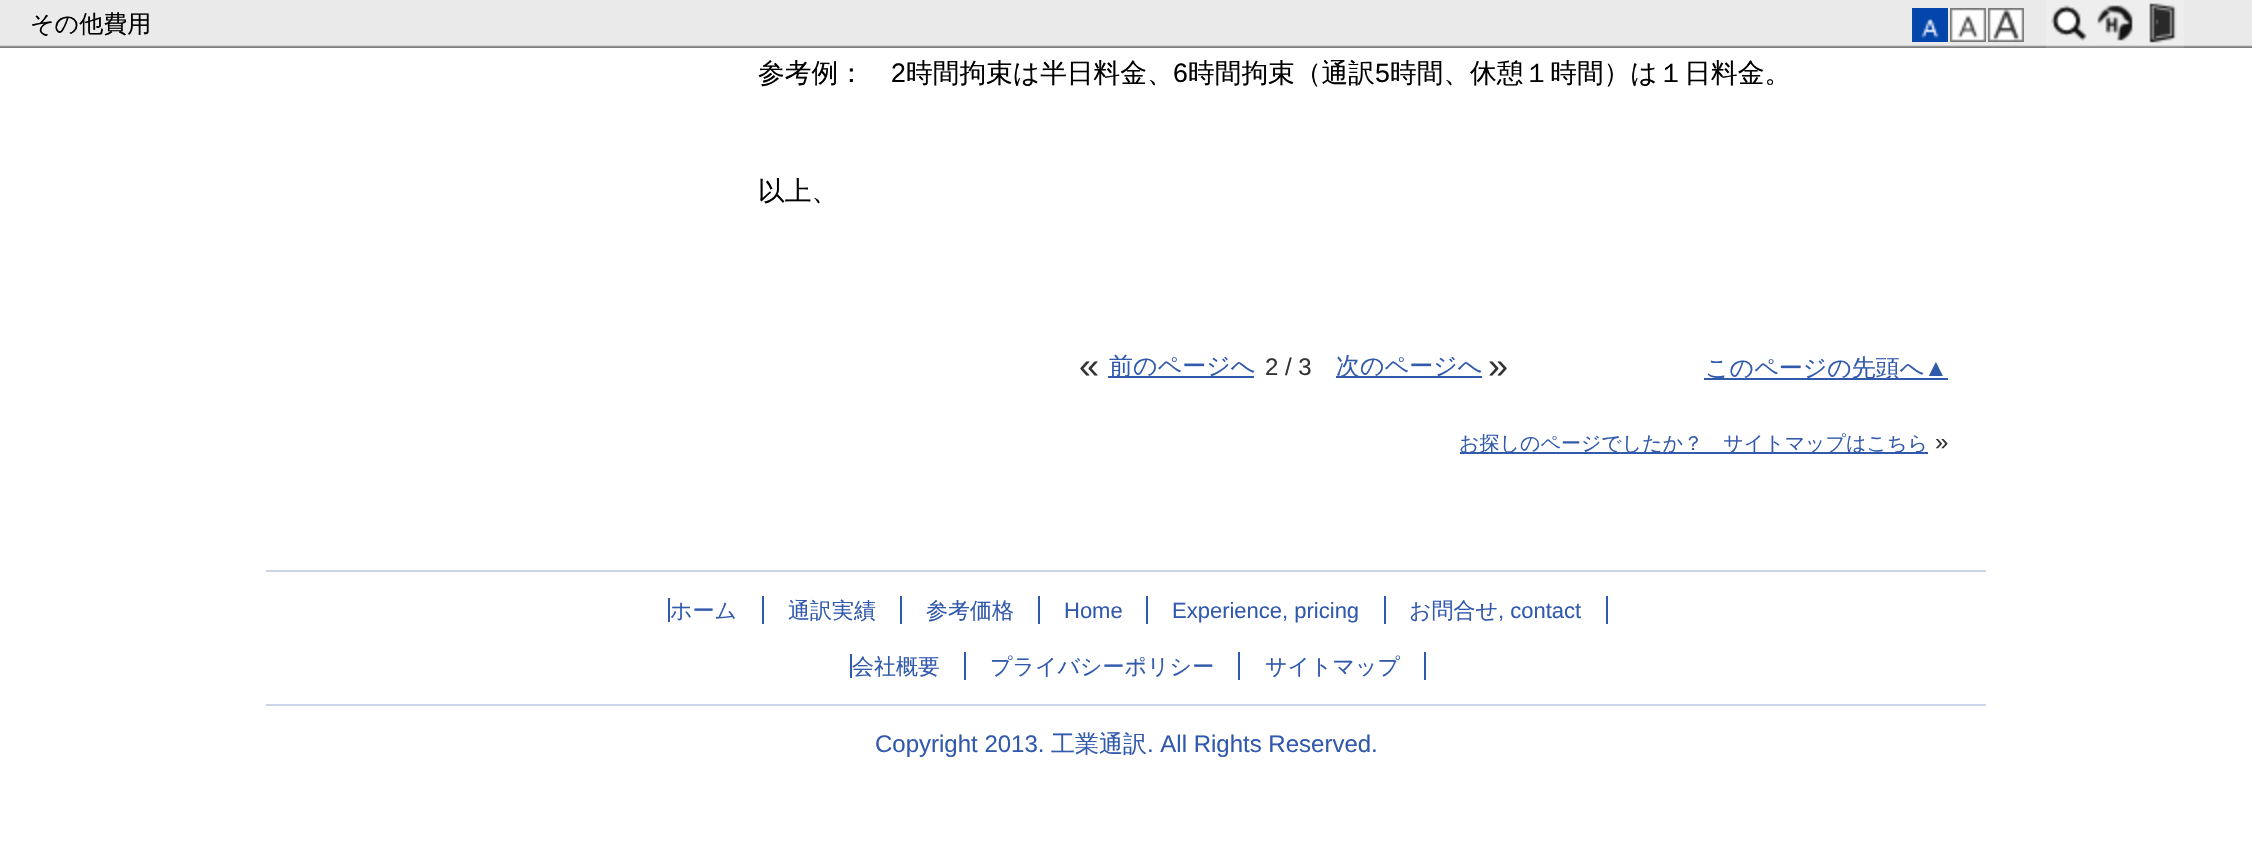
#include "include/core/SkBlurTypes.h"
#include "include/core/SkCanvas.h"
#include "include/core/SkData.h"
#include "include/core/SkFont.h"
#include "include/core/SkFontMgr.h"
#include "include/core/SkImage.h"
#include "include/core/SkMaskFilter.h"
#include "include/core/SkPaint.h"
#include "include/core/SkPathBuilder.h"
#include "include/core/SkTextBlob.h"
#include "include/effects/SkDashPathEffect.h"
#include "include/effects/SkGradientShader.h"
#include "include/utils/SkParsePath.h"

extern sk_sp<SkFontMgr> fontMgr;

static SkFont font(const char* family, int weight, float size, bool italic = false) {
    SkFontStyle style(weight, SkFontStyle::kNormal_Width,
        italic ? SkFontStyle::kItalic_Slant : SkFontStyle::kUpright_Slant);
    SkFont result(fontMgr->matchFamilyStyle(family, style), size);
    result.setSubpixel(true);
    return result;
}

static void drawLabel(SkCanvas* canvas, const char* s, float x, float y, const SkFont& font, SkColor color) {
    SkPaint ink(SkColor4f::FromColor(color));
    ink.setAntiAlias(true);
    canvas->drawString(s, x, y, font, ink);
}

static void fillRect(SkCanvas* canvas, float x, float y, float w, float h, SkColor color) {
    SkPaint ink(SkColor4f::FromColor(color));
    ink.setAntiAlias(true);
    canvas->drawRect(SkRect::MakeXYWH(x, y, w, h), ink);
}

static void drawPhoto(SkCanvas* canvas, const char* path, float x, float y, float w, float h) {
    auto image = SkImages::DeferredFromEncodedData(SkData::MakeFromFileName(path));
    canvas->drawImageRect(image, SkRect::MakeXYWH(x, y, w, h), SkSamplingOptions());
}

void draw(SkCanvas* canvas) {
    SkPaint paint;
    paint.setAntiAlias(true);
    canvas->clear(0xFFFFFFFF);
    drawPhoto(canvas, "assets/img1.png", 0, 0, 2252, 48);
    SkFont font1 = font("WenQuanYi Zen Hei", 500, 24);
    drawLabel(canvas, "その他費用", 30, 32, font1, 0xFF000000);
    drawPhoto(canvas, "assets/img2.png", 1912, 8, 36, 34);
    drawPhoto(canvas, "assets/img3.png", 1950, 8, 36, 34);
    drawPhoto(canvas, "assets/img4.png", 1988, 8, 36, 34);
    drawPhoto(canvas, "assets/img5.png", 2046, 47, 46, 1);
    drawPhoto(canvas, "assets/img6.png", 2046, 0, 46, 47);
    drawPhoto(canvas, "assets/img7.png", 2092, 47, 46, 1);
    drawPhoto(canvas, "assets/img8.png", 2092, 0, 46, 47);
    drawPhoto(canvas, "assets/img9.png", 2138, 47, 46, 1);
    drawPhoto(canvas, "assets/img10.png", 2138, 0, 46, 47);
    SkFont font2 = font("WenQuanYi Zen Hei", 500, 26.7f);
    drawLabel(canvas, "参考例：", 758, 82, font2, 0xFF000000);
    SkFont font3 = font("Liberation Sans", 400, 26.7f);
    drawLabel(canvas, "2", 891, 82, font3, 0xFF000000);
    drawLabel(canvas, "時間拘束は半日料金、", 906, 82, font2, 0xFF000000);
    drawLabel(canvas, "6", 1173, 82, font3, 0xFF000000);
    drawLabel(canvas, "時間拘束（通訳", 1188, 82, font2, 0xFF000000);
    drawLabel(canvas, "5", 1375, 82, font3, 0xFF000000);
    drawLabel(canvas, "時間、休憩１時間）は１日料金。", 1390, 82, font2, 0xFF000000);
    drawLabel(canvas, "以上、", 758, 200, font2, 0xFF000000);
    SkFont font4 = font("Liberation Sans", 400, 36);
    drawLabel(canvas, "«", 1079, 378, font4, 0xFF333333);
    fillRect(canvas, 1108, 376, 146, 2, 0xFF3159AC);
    drawLabel(canvas, "前のページへ", 1109, 374, font1, 0xFF3159AC);
    SkFont font5 = font("Liberation Sans", 400, 24);
    drawLabel(canvas, "2 / 3", 1265, 375, font5, 0xFF333333);
    fillRect(canvas, 1336, 376, 146, 2, 0xFF3159AC);
    drawLabel(canvas, "次のページへ", 1336, 374, font1, 0xFF3159AC);
    drawLabel(canvas, "»", 1488, 378, font4, 0xFF333333);
    fillRect(canvas, 1704, 378, 244, 2, 0xFF3159AC);
    drawLabel(canvas, "このページの先頭へ", 1705, 376, font1, 0xFF3159AC);
    drawLabel(canvas, "▲", 1924, 376, font5, 0xFF3159AC);
    fillRect(canvas, 1460, 452, 468, 2, 0xFF3159AC);
    SkFont font6 = font("WenQuanYi Zen Hei", 500, 20);
    drawLabel(canvas, "お探しのページでしたか？　サイトマップはこちら", 1459, 450, font6, 0xFF3159AC);
    drawLabel(canvas, "»", 1935, 450, font5, 0xFF333333);
    fillRect(canvas, 266, 570, 1720, 2, 0xFFCBD5EA);
    fillRect(canvas, 266, 704, 1720, 2, 0xFFCBD5EA);
    SkFont font7 = font("WenQuanYi Zen Hei", 500, 22);
    drawLabel(canvas, "ホーム", 670, 618, font7, 0xFF3159AC);
    fillRect(canvas, 668, 598, 2, 24, 0xFF3159AC);
    drawLabel(canvas, "通訳実績", 788, 618, font7, 0xFF3159AC);
    fillRect(canvas, 762, 596, 2, 28, 0xFF3159AC);
    drawLabel(canvas, "参考価格", 926, 618, font7, 0xFF3159AC);
    fillRect(canvas, 900, 596, 2, 28, 0xFF3159AC);
    fillRect(canvas, 1038, 596, 2, 28, 0xFF3159AC);
    SkFont font8 = font("Liberation Sans", 400, 22);
    drawLabel(canvas, "Home", 1064, 618, font8, 0xFF3159AC);
    fillRect(canvas, 1146, 596, 2, 28, 0xFF3159AC);
    drawLabel(canvas, "Experience, pricing", 1172, 618, font8, 0xFF3159AC);
    drawLabel(canvas, "お問合せ", 1409, 618, font7, 0xFF3159AC);
    fillRect(canvas, 1384, 596, 2, 28, 0xFF3159AC);
    drawLabel(canvas, ", contact", 1498, 618, font8, 0xFF3159AC);
    fillRect(canvas, 1606, 596, 2, 28, 0xFF3159AC);
    drawLabel(canvas, "会社概要", 852, 674, font7, 0xFF3159AC);
    fillRect(canvas, 850, 654, 2, 24, 0xFF3159AC);
    fillRect(canvas, 964, 652, 2, 28, 0xFF3159AC);
    drawLabel(canvas, "プライバシーポリシー", 990, 674, font7, 0xFF3159AC);
    fillRect(canvas, 1238, 652, 2, 28, 0xFF3159AC);
    drawLabel(canvas, "サイトマップ", 1265, 674, font7, 0xFF3159AC);
    fillRect(canvas, 1424, 652, 2, 28, 0xFF3159AC);
    drawLabel(canvas, "Copyright 2013.", 875, 752, font5, 0xFF3159AC);
    drawLabel(canvas, "工業通訳", 1051, 752, font1, 0xFF3159AC);
    drawLabel(canvas, ". All Rights Reserved.", 1147, 752, font5, 0xFF3159AC);
}
